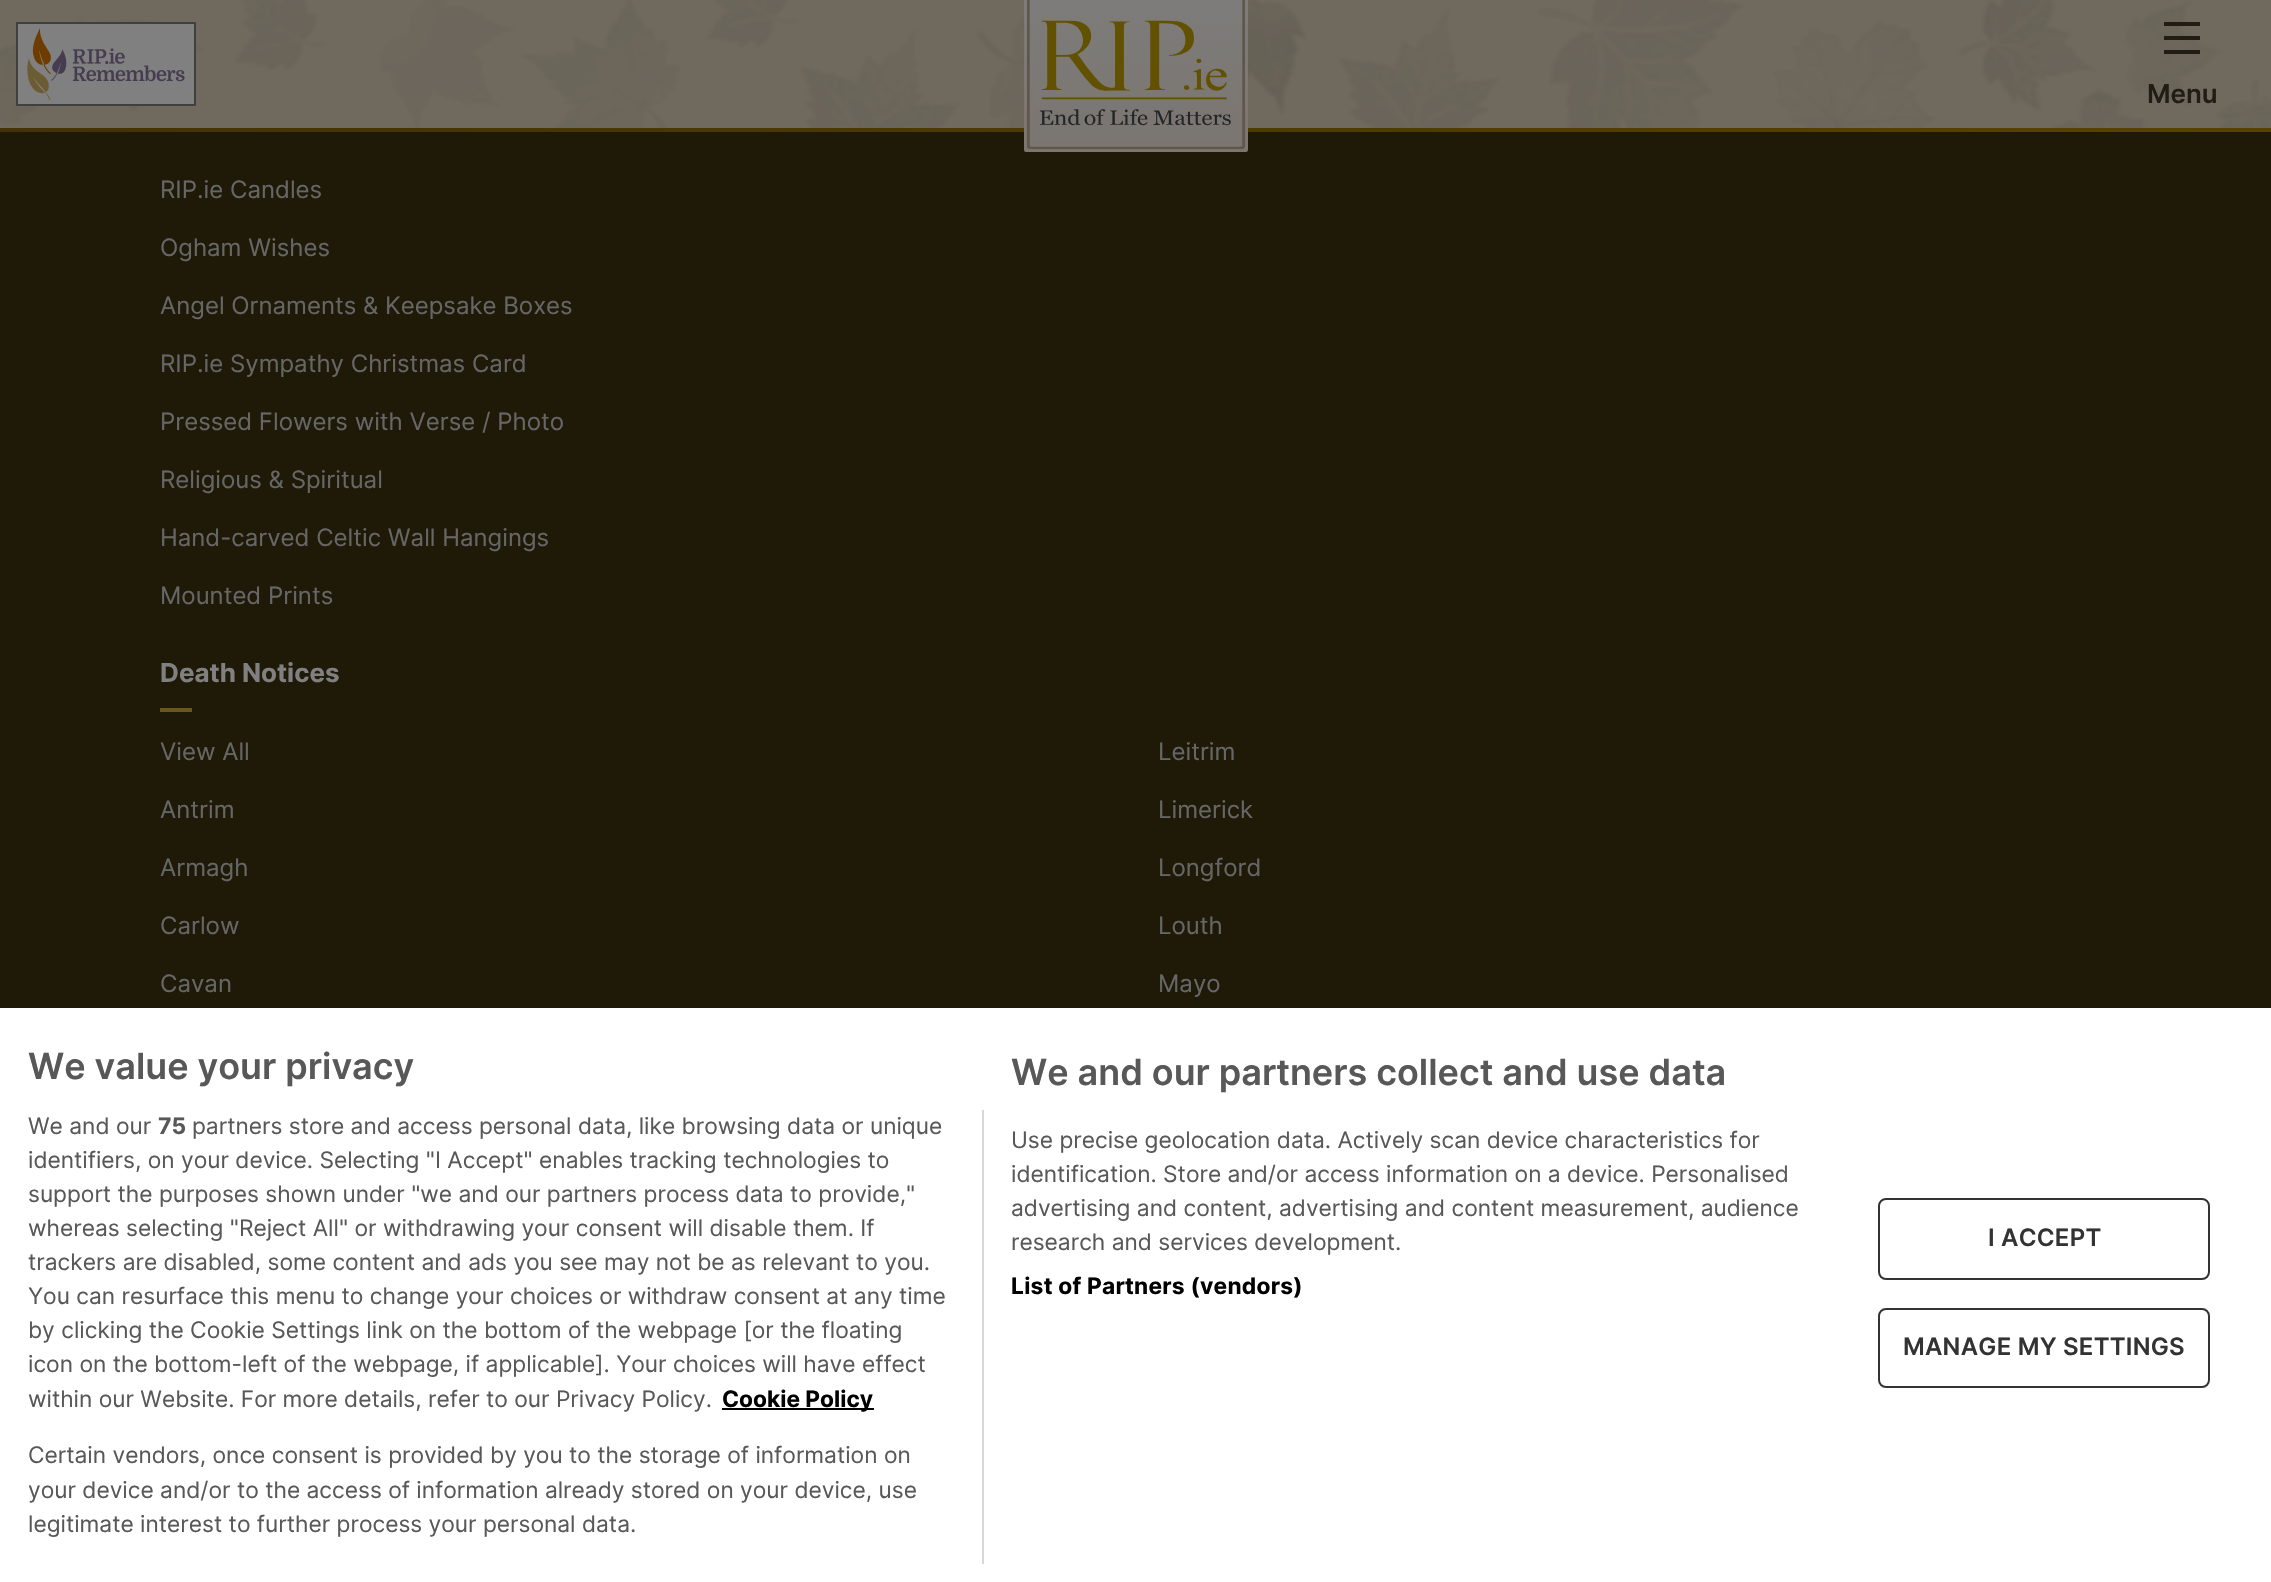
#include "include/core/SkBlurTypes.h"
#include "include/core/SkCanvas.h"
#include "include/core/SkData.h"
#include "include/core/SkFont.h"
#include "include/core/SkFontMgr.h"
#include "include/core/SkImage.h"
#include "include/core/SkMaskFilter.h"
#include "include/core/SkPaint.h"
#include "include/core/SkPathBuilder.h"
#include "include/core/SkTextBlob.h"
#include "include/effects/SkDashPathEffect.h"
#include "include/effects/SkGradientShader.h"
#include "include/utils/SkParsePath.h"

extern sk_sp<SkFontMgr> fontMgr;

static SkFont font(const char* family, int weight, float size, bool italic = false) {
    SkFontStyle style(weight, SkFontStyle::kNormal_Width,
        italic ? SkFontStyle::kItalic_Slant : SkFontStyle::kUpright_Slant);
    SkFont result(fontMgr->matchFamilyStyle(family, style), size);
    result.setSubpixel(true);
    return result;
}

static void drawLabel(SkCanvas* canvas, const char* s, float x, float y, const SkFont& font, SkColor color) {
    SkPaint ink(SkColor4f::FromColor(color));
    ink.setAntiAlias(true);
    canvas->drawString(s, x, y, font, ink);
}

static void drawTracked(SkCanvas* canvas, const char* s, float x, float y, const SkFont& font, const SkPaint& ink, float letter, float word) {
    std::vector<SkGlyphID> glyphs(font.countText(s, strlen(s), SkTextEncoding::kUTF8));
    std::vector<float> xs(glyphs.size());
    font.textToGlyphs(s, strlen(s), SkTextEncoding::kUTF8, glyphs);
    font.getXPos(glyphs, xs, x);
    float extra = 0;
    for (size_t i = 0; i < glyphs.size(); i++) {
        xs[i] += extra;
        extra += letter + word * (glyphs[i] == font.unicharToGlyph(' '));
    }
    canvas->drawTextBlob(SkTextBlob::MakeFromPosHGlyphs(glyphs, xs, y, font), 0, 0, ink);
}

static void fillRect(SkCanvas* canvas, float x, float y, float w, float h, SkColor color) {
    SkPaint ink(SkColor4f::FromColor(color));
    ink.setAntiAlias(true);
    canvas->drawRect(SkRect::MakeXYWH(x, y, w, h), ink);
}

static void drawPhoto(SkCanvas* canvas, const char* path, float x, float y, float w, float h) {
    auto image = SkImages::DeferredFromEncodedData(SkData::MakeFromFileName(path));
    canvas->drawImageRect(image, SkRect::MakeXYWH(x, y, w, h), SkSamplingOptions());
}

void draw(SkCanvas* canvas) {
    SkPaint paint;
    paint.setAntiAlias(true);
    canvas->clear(0xFF1F1907);
    drawPhoto(canvas, "assets/img1.png", 0, 0, 2271, 128);
    paint.setColor(0xFF808080);
    canvas->drawRect(SkRect::MakeXYWH(17, 23, 178, 82), paint);
    paint.setStroke(true);
    paint.setStrokeWidth(2);
    paint.setColor(0xFF404040);
    canvas->drawRect(SkRect::MakeXYWH(17, 23, 178, 82), paint);
    drawPhoto(canvas, "assets/img2.png", 27, 28, 158, 72);
    paint.setStroke(false);
    {
        const SkColor colors[] = {0xFF5D4600, 0xFF3E2F07};
        const float stops[] = {0.01f, 0.98f};
        const SkPoint ends[] = {{1137, 88}, {1135, 172}};
        paint.setShader(SkGradientShader::MakeLinear(ends, colors, stops, 2, SkTileMode::kClamp));
        paint.setAlpha(255);
    }
    canvas->drawRect(SkRect::MakeXYWH(0, 128, 2271, 4), paint);
    drawPhoto(canvas, "assets/img3.png", 1024, 0, 224, 152);
    fillRect(canvas, 2164, 22, 36, 4, 0xFF211D15);
    fillRect(canvas, 2164, 36, 36, 4, 0xFF211D15);
    fillRect(canvas, 2164, 50, 36, 4, 0xFF211D15);
    SkFont font1 = font("Inter", 600, 26);
    drawLabel(canvas, "Menu", 2147, 103, font1, 0xFF211D15);
    SkFont font2 = font("Inter", 400, 24);
    drawLabel(canvas, "RIP.ie Candles", 160, 198, font2, 0xFF666666);
    drawLabel(canvas, "Ogham Wishes", 160, 256, font2, 0xFF666666);
    drawLabel(canvas, "Angel Ornaments & Keepsake Boxes", 160, 314, font2, 0xFF666666);
    drawLabel(canvas, "RIP.ie Sympathy Christmas Card", 160, 372, font2, 0xFF666666);
    drawLabel(canvas, "Pressed Flowers with Verse / Photo", 160, 430, font2, 0xFF666666);
    drawLabel(canvas, "Religious & Spiritual", 160, 488, font2, 0xFF666666);
    drawLabel(canvas, "Hand-carved Celtic Wall Hangings", 160, 546, font2, 0xFF666666);
    drawLabel(canvas, "Mounted Prints", 160, 604, font2, 0xFF666666);
    SkFont font3 = font("Inter", 700, 26);
    drawLabel(canvas, "Death Notices", 160, 682, font3, 0xFF808080);
    fillRect(canvas, 160, 708, 32, 4, 0xFF69571C);
    drawLabel(canvas, "View All", 160, 760, font2, 0xFF666666);
    drawLabel(canvas, "Leitrim", 1158, 760, font2, 0xFF666666);
    drawLabel(canvas, "Antrim", 160, 818, font2, 0xFF666666);
    drawLabel(canvas, "Limerick", 1158, 818, font2, 0xFF666666);
    drawLabel(canvas, "Armagh", 160, 876, font2, 0xFF666666);
    drawLabel(canvas, "Longford", 1158, 876, font2, 0xFF666666);
    drawLabel(canvas, "Carlow", 160, 934, font2, 0xFF666666);
    drawLabel(canvas, "Louth", 1158, 934, font2, 0xFF666666);
    drawLabel(canvas, "Cavan", 160, 992, font2, 0xFF666666);
    drawLabel(canvas, "Mayo", 1158, 992, font2, 0xFF666666);
    fillRect(canvas, 0, 1008, 2271, 574, 0xFFFFFFFF);
    SkFont font4 = font("Inter", 600, 36);
    drawLabel(canvas, "We value your privacy", 28, 1079, font4, 0xFF585858);
    drawLabel(canvas, "We and our partners collect and use data", 1011, 1085, font4, 0xFF585858);
    SkFont font5 = font("Inter", 400, 22.75f);
    drawLabel(canvas, "Use precise geolocation data. Actively scan device characteristics for", 1011, 1148, font5, 0xFF585858);
    drawLabel(canvas, "identification. Store and/or access information on a device. Personalised", 1011, 1182, font5, 0xFF585858);
    drawLabel(canvas, "advertising and content, advertising and content measurement, audience", 1011, 1216, font5, 0xFF585858);
    drawLabel(canvas, "research and services development.", 1011, 1250, font5, 0xFF585858);
    SkFont font6 = font("Inter", 700, 22.75f);
    paint.setShader(nullptr);
    paint.setColor(0xFF000000);
    drawTracked(canvas, "List of Partners (vendors)", 1011, 1294, font6, paint, 0.25f, 0);
    fillRect(canvas, 982, 1110, 2, 454, 0xFFD8D8D8);
    drawLabel(canvas, "We and our", 28, 1134, font5, 0xFF585858);
    drawLabel(canvas, "75", 158, 1134, font6, 0xFF585858);
    drawLabel(canvas, "partners store and access personal data, like browsing data or unique", 192, 1134, font5, 0xFF585858);
    drawLabel(canvas, "identifiers, on your device. Selecting \"I Accept\" enables tracking technologies to", 28, 1168, font5, 0xFF585858);
    drawLabel(canvas, "support the purposes shown under \"we and our partners process data to provide,\"", 28, 1202, font5, 0xFF585858);
    drawLabel(canvas, "whereas selecting \"Reject All\" or withdrawing your consent will disable them. If", 28, 1236, font5, 0xFF585858);
    drawLabel(canvas, "trackers are disabled, some content and ads you see may not be as relevant to you.", 28, 1270, font5, 0xFF585858);
    drawLabel(canvas, "You can resurface this menu to change your choices or withdraw consent at any time", 28, 1304, font5, 0xFF585858);
    drawLabel(canvas, "by clicking the Cookie Settings link on the bottom of the webpage [or the floating", 28, 1338, font5, 0xFF585858);
    drawLabel(canvas, "icon on the bottom-left of the webpage, if applicable]. Your choices will have effect", 28, 1372, font5, 0xFF585858);
    drawLabel(canvas, "within our Website. For more details, refer to our Privacy Policy.", 28, 1407, font5, 0xFF585858);
    fillRect(canvas, 722, 1408, 152, 2, 0xFF000000);
    drawLabel(canvas, "Cookie Policy", 722, 1407, font6, 0xFF000000);
    drawLabel(canvas, "Certain vendors, once consent is provided by you to the storage of information on", 28, 1463, font5, 0xFF585858);
    drawLabel(canvas, "your device and/or to the access of information already stored on your device, use", 28, 1498, font5, 0xFF585858);
    drawLabel(canvas, "legitimate interest to further process your personal data.", 28, 1532, font5, 0xFF585858);
    paint.setStroke(true);
    paint.setColor(0xFF333333);
    canvas->drawRoundRect(SkRect::MakeXYWH(1879, 1199, 330, 80), 7, 7, paint);
    SkFont font7 = font("Inter", 600, 24);
    paint.setStroke(false);
    drawTracked(canvas, "I ACCEPT", 1988, 1246, font7, paint, 0.25f, 0);
    paint.setStroke(true);
    canvas->drawRoundRect(SkRect::MakeXYWH(1879, 1309, 330, 78), 7, 7, paint);
    paint.setStroke(false);
    drawTracked(canvas, "MANAGE MY SETTINGS", 1903, 1355, font7, paint, 0.25f, 0);
}
